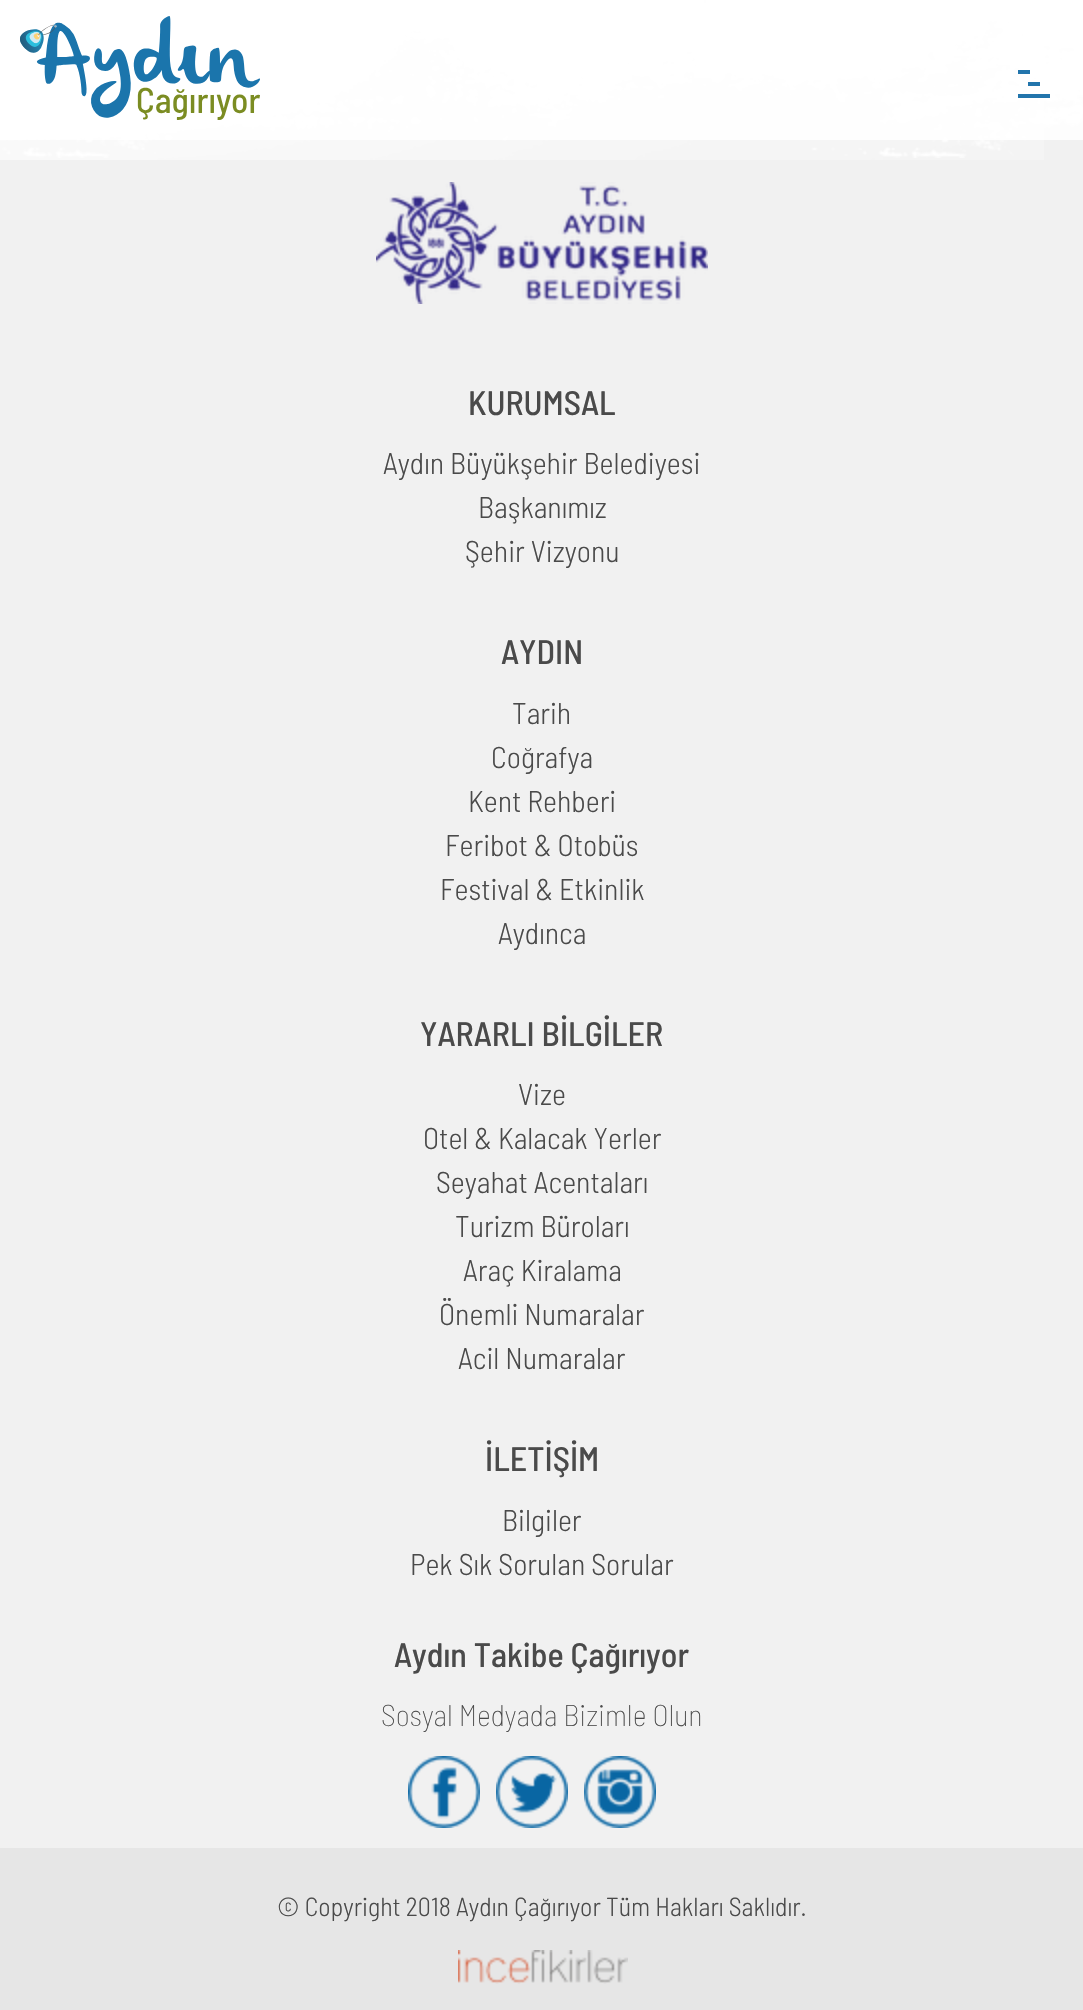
#include "include/core/SkBlurTypes.h"
#include "include/core/SkCanvas.h"
#include "include/core/SkData.h"
#include "include/core/SkFont.h"
#include "include/core/SkFontMgr.h"
#include "include/core/SkImage.h"
#include "include/core/SkMaskFilter.h"
#include "include/core/SkPaint.h"
#include "include/core/SkPathBuilder.h"
#include "include/core/SkTextBlob.h"
#include "include/effects/SkDashPathEffect.h"
#include "include/effects/SkGradientShader.h"
#include "include/utils/SkParsePath.h"

extern sk_sp<SkFontMgr> fontMgr;

static SkFont font(const char* family, int weight, float size, bool italic = false) {
    SkFontStyle style(weight, SkFontStyle::kNormal_Width,
        italic ? SkFontStyle::kItalic_Slant : SkFontStyle::kUpright_Slant);
    SkFont result(fontMgr->matchFamilyStyle(family, style), size);
    result.setSubpixel(true);
    return result;
}

static void drawLabel(SkCanvas* canvas, const char* s, float x, float y, const SkFont& font, SkColor color) {
    SkPaint ink(SkColor4f::FromColor(color));
    ink.setAntiAlias(true);
    canvas->drawString(s, x, y, font, ink);
}

static void fillRect(SkCanvas* canvas, float x, float y, float w, float h, SkColor color) {
    SkPaint ink(SkColor4f::FromColor(color));
    ink.setAntiAlias(true);
    canvas->drawRect(SkRect::MakeXYWH(x, y, w, h), ink);
}

static void drawPhoto(SkCanvas* canvas, const char* path, float x, float y, float w, float h) {
    auto image = SkImages::DeferredFromEncodedData(SkData::MakeFromFileName(path));
    canvas->drawImageRect(image, SkRect::MakeXYWH(x, y, w, h), SkSamplingOptions());
}

void draw(SkCanvas* canvas) {
    SkPaint paint;
    paint.setAntiAlias(true);
    canvas->clear(0xFFF1F1F1);
    drawPhoto(canvas, "assets/img3.png", 0, 0, 1083, 158);
    drawPhoto(canvas, "assets/img1.png", 0, 20, 1044, 140);
    fillRect(canvas, 0, 19, 1083, 121, 0xD9FFFFFF);
    drawPhoto(canvas, "assets/img2.png", 20, 16, 240, 104);
    fillRect(canvas, 1018, 70, 12, 4, 0xFF2275AC);
    fillRect(canvas, 1028, 82, 12, 4, 0xFF2275AC);
    fillRect(canvas, 1018, 94, 32, 4, 0xFF2275AC);
    drawPhoto(canvas, "assets/img4.png", 376, 182, 332, 122);
    SkFont font1 = font("Barlow Semi Condensed", 500, 34);
    drawLabel(canvas, "KURUMSAL", 468, 415, font1, 0xFF4A4A4A);
    SkFont font2 = font("Barlow Semi Condensed", 300, 30);
    drawLabel(canvas, "Aydın Büyükşehir Belediyesi", 383, 474, font2, 0xFF4A4A4A);
    drawLabel(canvas, "Başkanımız", 478, 518, font2, 0xFF4A4A4A);
    drawLabel(canvas, "Şehir Vizyonu", 465, 562, font2, 0xFF4A4A4A);
    drawLabel(canvas, "AYDIN", 501, 664, font1, 0xFF4A4A4A);
    drawLabel(canvas, "Tarih", 512, 724, font2, 0xFF4A4A4A);
    drawLabel(canvas, "Coğrafya", 491, 768, font2, 0xFF4A4A4A);
    drawLabel(canvas, "Kent Rehberi", 468, 812, font2, 0xFF4A4A4A);
    drawLabel(canvas, "Feribot & Otobüs", 445, 856, font2, 0xFF4A4A4A);
    drawLabel(canvas, "Festival & Etkinlik", 440, 900, font2, 0xFF4A4A4A);
    drawLabel(canvas, "Aydınca", 498, 944, font2, 0xFF4A4A4A);
    drawLabel(canvas, "YARARLI BİLGİLER", 420, 1046, font1, 0xFF4A4A4A);
    drawLabel(canvas, "Vize", 518, 1105, font2, 0xFF4A4A4A);
    drawLabel(canvas, "Otel & Kalacak Yerler", 423, 1149, font2, 0xFF4A4A4A);
    drawLabel(canvas, "Seyahat Acentaları", 436, 1193, font2, 0xFF4A4A4A);
    drawLabel(canvas, "Turizm Büroları", 455, 1237, font2, 0xFF4A4A4A);
    drawLabel(canvas, "Araç Kiralama", 463, 1281, font2, 0xFF4A4A4A);
    drawLabel(canvas, "Önemli Numaralar", 439, 1325, font2, 0xFF4A4A4A);
    drawLabel(canvas, "Acil Numaralar", 458, 1369, font2, 0xFF4A4A4A);
    drawLabel(canvas, "İLETİŞİM", 485, 1471, font1, 0xFF4A4A4A);
    drawLabel(canvas, "Bilgiler", 502, 1531, font2, 0xFF4A4A4A);
    drawLabel(canvas, "Pek Sık Sorulan Sorular", 410, 1575, font2, 0xFF4A4A4A);
    drawLabel(canvas, "Aydın Takibe Çağırıyor", 394, 1667, font1, 0xFF4A4A4A);
    SkFont font3 = font("Barlow Semi Condensed", 100, 30);
    drawLabel(canvas, "Sosyal Medyada Bizimle Olun", 381, 1726, font3, 0xFF4A4A4A);
    drawPhoto(canvas, "assets/img5.png", 408, 1756, 72, 72);
    drawPhoto(canvas, "assets/img6.png", 496, 1756, 72, 72);
    drawPhoto(canvas, "assets/img7.png", 584, 1756, 72, 72);
    fillRect(canvas, 0, 1848, 1083, 162, 0xFFE6E6E6);
    SkFont font4 = font("Barlow Semi Condensed", 300, 26);
    drawLabel(canvas, "© Copyright 2018 Aydın Çağırıyor Tüm Hakları Saklıdır.", 277, 1916, font4, 0xFF4A4A4A);
    drawPhoto(canvas, "assets/img8.png", 458, 1950, 170, 34);
}
